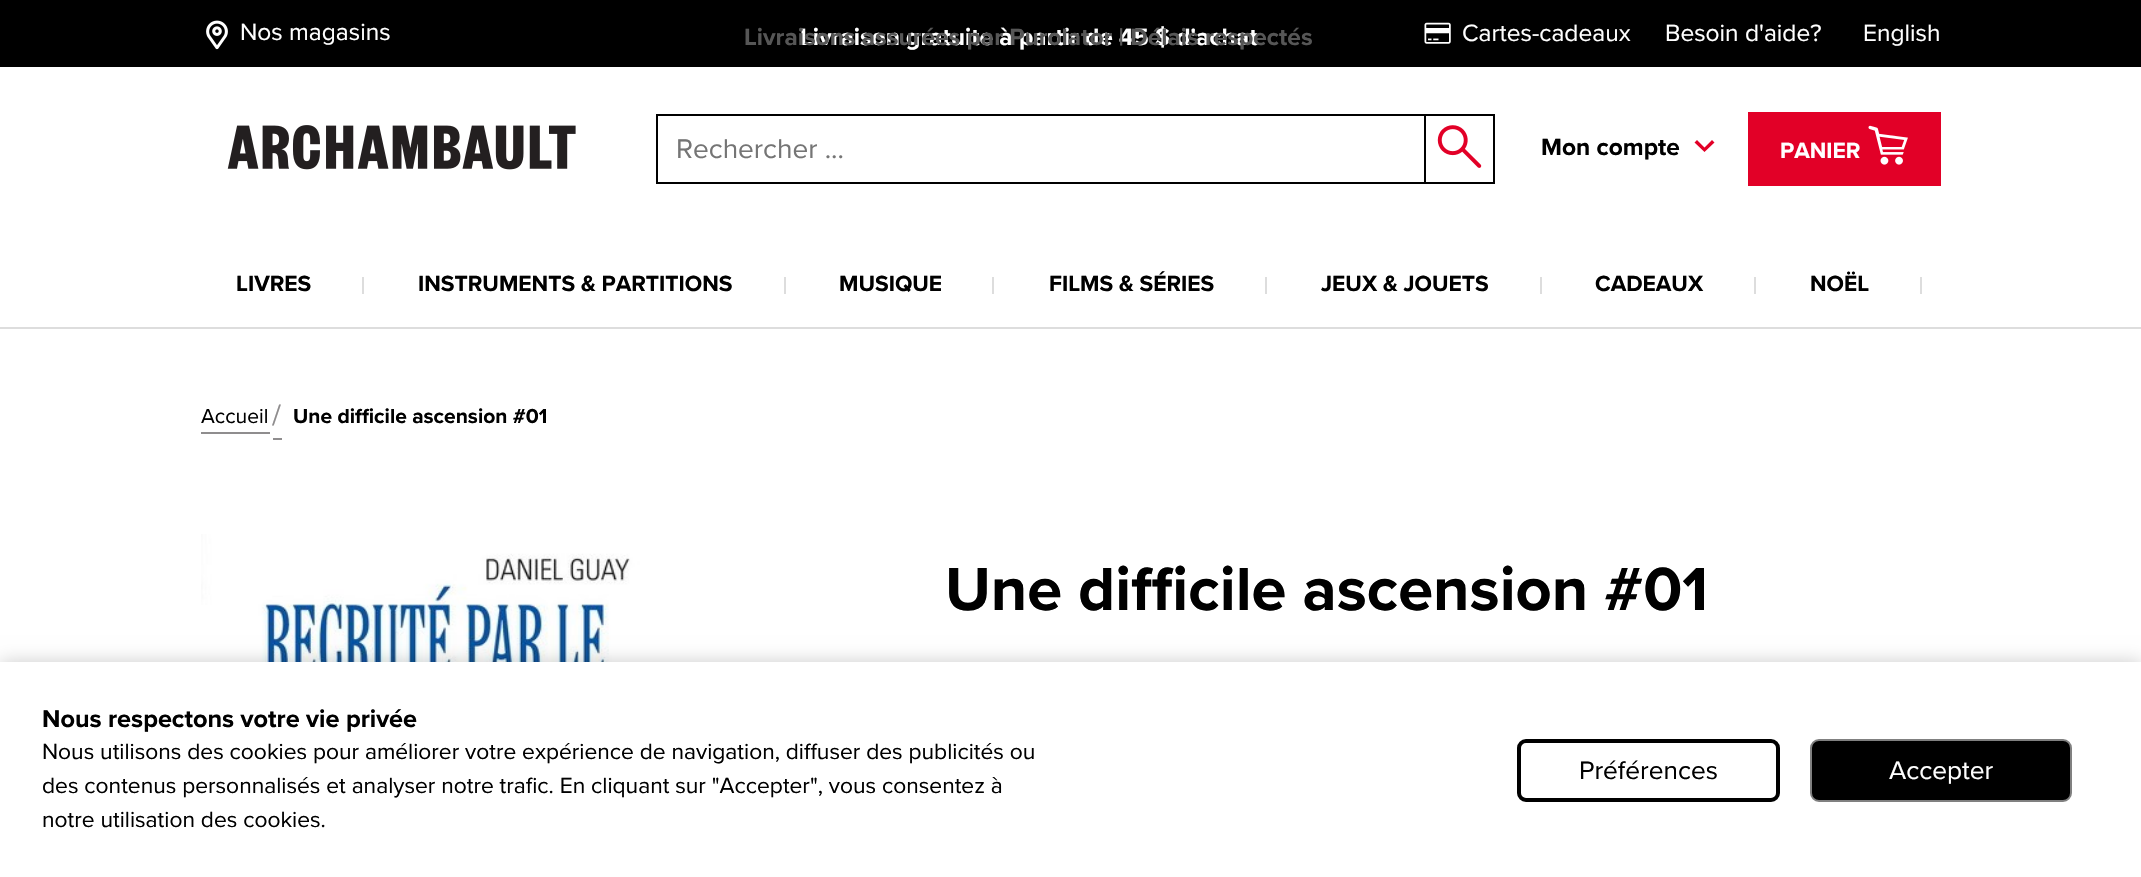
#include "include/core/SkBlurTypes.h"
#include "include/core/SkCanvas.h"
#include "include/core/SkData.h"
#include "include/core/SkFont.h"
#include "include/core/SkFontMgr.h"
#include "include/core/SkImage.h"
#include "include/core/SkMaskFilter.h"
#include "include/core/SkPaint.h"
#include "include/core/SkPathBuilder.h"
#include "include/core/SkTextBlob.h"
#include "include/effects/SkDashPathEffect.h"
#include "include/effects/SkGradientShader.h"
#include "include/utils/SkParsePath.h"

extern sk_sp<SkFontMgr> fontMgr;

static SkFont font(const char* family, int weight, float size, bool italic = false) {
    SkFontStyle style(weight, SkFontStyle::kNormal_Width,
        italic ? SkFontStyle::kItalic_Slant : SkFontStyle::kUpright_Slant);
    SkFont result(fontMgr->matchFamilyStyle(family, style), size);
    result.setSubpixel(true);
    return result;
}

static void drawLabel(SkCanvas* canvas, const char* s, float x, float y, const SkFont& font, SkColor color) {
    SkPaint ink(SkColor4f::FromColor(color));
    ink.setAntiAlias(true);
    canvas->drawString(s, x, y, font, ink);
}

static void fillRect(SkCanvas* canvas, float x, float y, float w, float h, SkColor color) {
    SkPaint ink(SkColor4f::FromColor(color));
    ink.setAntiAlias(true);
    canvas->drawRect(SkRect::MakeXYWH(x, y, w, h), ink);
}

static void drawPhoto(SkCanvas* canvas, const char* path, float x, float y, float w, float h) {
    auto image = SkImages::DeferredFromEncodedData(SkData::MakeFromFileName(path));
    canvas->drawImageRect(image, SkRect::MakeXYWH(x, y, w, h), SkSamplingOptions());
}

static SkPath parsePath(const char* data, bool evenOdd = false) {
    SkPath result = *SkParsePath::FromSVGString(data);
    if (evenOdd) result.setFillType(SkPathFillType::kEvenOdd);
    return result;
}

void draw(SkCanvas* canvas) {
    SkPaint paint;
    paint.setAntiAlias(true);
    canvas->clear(0xFFFFFFFF);
    fillRect(canvas, 0, 0, 2141, 67, 0xFF000000);
    drawPhoto(canvas, "assets/img1.png", 206, 20, 22, 30);
    SkFont font1 = font("Proxima Nova", 400, 24.5f);
    drawLabel(canvas, "Nos magasins", 240, 40, font1, 0xFFFFFFFF);
    SkFont font2 = font("Proxima Nova", 700, 24.5f);
    drawLabel(canvas, "Livraison gratuite à partir de 45 $ d'achat", 800, 45, font2, 0xFFFFFFFF);
    drawLabel(canvas, "Livraisons assurées par Purolator | Délais respectés", 744, 45, font2, 0xFF565656);
    drawPhoto(canvas, "assets/img2.png", 1424, 22, 27, 22);
    drawLabel(canvas, "Cartes-cadeaux", 1462, 41, font1, 0xFFFFFFFF);
    drawLabel(canvas, "Besoin d'aide?", 1665, 41, font1, 0xFFFFFFFF);
    drawLabel(canvas, "English", 1863, 41, font1, 0xFFFFFFFF);
    drawPhoto(canvas, "assets/img3.png", 227, 125, 349, 45);
    fillRect(canvas, 1425, 114, 70, 2, 0xFF000000);
    fillRect(canvas, 1493, 114, 2, 70, 0xFF000000);
    fillRect(canvas, 1425, 182, 70, 2, 0xFF000000);
    paint.setStroke(true);
    paint.setStrokeWidth(2);
    paint.setColor(0xFF000000);
    canvas->drawRect(SkRect::MakeXYWH(657, 115, 768, 68), paint);
    SkFont font3 = font("Proxima Nova", 400, 28);
    drawLabel(canvas, "Rechercher ...", 676, 158, font3, 0xFF757575);
    drawPhoto(canvas, "assets/img4.png", 1437, 125, 45, 43);
    drawLabel(canvas, "Mon compte", 1541, 155, font2, 0xFF000000);
    paint.setStroke(false);
    paint.setColor(0xFFE20027);
    canvas->drawPath(parsePath("M1714.5 142.5L1712 140L1704.5 147.5L1697 140L1694.5 142.5L1704.5 152Z"), paint);
    fillRect(canvas, 1748, 112, 193, 74, 0xFFE20027);
    SkFont font4 = font("Proxima Nova", 700, 22.75f);
    drawLabel(canvas, "PANIER", 1780, 158, font4, 0xFFFFFFFF);
    drawPhoto(canvas, "assets/img5.png", 1868, 125, 40, 40);
    drawLabel(canvas, "LIVRES", 236, 291, font4, 0xFF000000);
    fillRect(canvas, 362, 277, 2, 17, 0xFFDDDDDD);
    drawLabel(canvas, "INSTRUMENTS & PARTITIONS", 418, 291, font4, 0xFF000000);
    fillRect(canvas, 784, 277, 2, 17, 0xFFDDDDDD);
    drawLabel(canvas, "MUSIQUE", 839, 291, font4, 0xFF000000);
    fillRect(canvas, 992, 277, 2, 17, 0xFFDDDDDD);
    drawLabel(canvas, "FILMS & SÉRIES", 1049, 291, font4, 0xFF000000);
    fillRect(canvas, 1265, 277, 2, 17, 0xFFDDDDDD);
    drawLabel(canvas, "JEUX & JOUETS", 1321, 291, font4, 0xFF000000);
    fillRect(canvas, 1540, 277, 2, 17, 0xFFDDDDDD);
    drawLabel(canvas, "CADEAUX", 1595, 291, font4, 0xFF000000);
    fillRect(canvas, 1754, 277, 2, 17, 0xFFDDDDDD);
    drawLabel(canvas, "NOËL", 1810, 291, font4, 0xFF000000);
    fillRect(canvas, 1920, 277, 2, 17, 0xFFDDDDDD);
    fillRect(canvas, 0, 327, 2141, 2, 0xFFDDDDDD);
    fillRect(canvas, 201, 432, 69, 2, 0xFF8F8D8E);
    fillRect(canvas, 273, 438, 9, 2, 0xFF8F8D8E);
    SkFont font5 = font("Proxima Nova", 400, 21);
    drawLabel(canvas, "Accueil", 201, 423, font5, 0xFF000000);
    SkFont font6 = font("Proxima Nova", 400, 30);
    drawLabel(canvas, "/", 272, 425, font6, 0xFF8F8D8E);
    SkFont font7 = font("Proxima Nova", 700, 21);
    drawLabel(canvas, "Une difficile ascension #01", 293, 423, font7, 0xFF000000);
    drawPhoto(canvas, "assets/img6.png", 201, 534, 454, 128);
    SkFont font8 = font("Proxima Nova", 700, 63);
    drawLabel(canvas, "Une difficile ascension #01", 945, 610, font8, 0xFF000000);
    paint.setColor(0x33000000);
    paint.setMaskFilter(SkMaskFilter::MakeBlur(kNormal_SkBlurStyle, 9));
    canvas->drawRect(SkRect::MakeXYWH(0, 662, 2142, 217), paint);
    paint.setMaskFilter(nullptr);
    fillRect(canvas, 0, 662, 2141, 215, 0xFFFFFFFF);
    SkFont font9 = font("Proxima Nova", 700, 25.25f);
    drawLabel(canvas, "Nous respectons votre vie privée", 42, 727, font9, 0xFF000000);
    SkFont font10 = font("Proxima Nova", 400, 22.75f);
    drawLabel(canvas, "Nous utilisons des cookies pour améliorer votre expérience de navigation, diffuser des publicités ou", 42, 759, font10, 0xFF000000);
    drawLabel(canvas, "des contenus personnalisés et analyser notre trafic. En cliquant sur \"Accepter\", vous consentez à", 42, 793, font10, 0xFF000000);
    drawLabel(canvas, "notre utilisation des cookies.", 42, 827, font10, 0xFF000000);
    paint.setStroke(true);
    paint.setStrokeWidth(4);
    paint.setColor(0xFF000000);
    canvas->drawRoundRect(SkRect::MakeXYWH(1519, 741, 259, 59), 7, 7, paint);
    SkFont font11 = font("Proxima Nova", 400, 26.25f);
    drawLabel(canvas, "Préférences", 1579, 779, font11, 0xFF000000);
    paint.setStroke(false);
    canvas->drawRoundRect(SkRect::MakeXYWH(1811, 740, 260, 61), 8, 8, paint);
    paint.setStroke(true);
    paint.setStrokeWidth(2);
    paint.setColor(0xFF808080);
    canvas->drawRoundRect(SkRect::MakeXYWH(1811, 740, 260, 61), 8, 8, paint);
    drawLabel(canvas, "Accepter", 1889, 779, font11, 0xFFFFFFFF);
}
